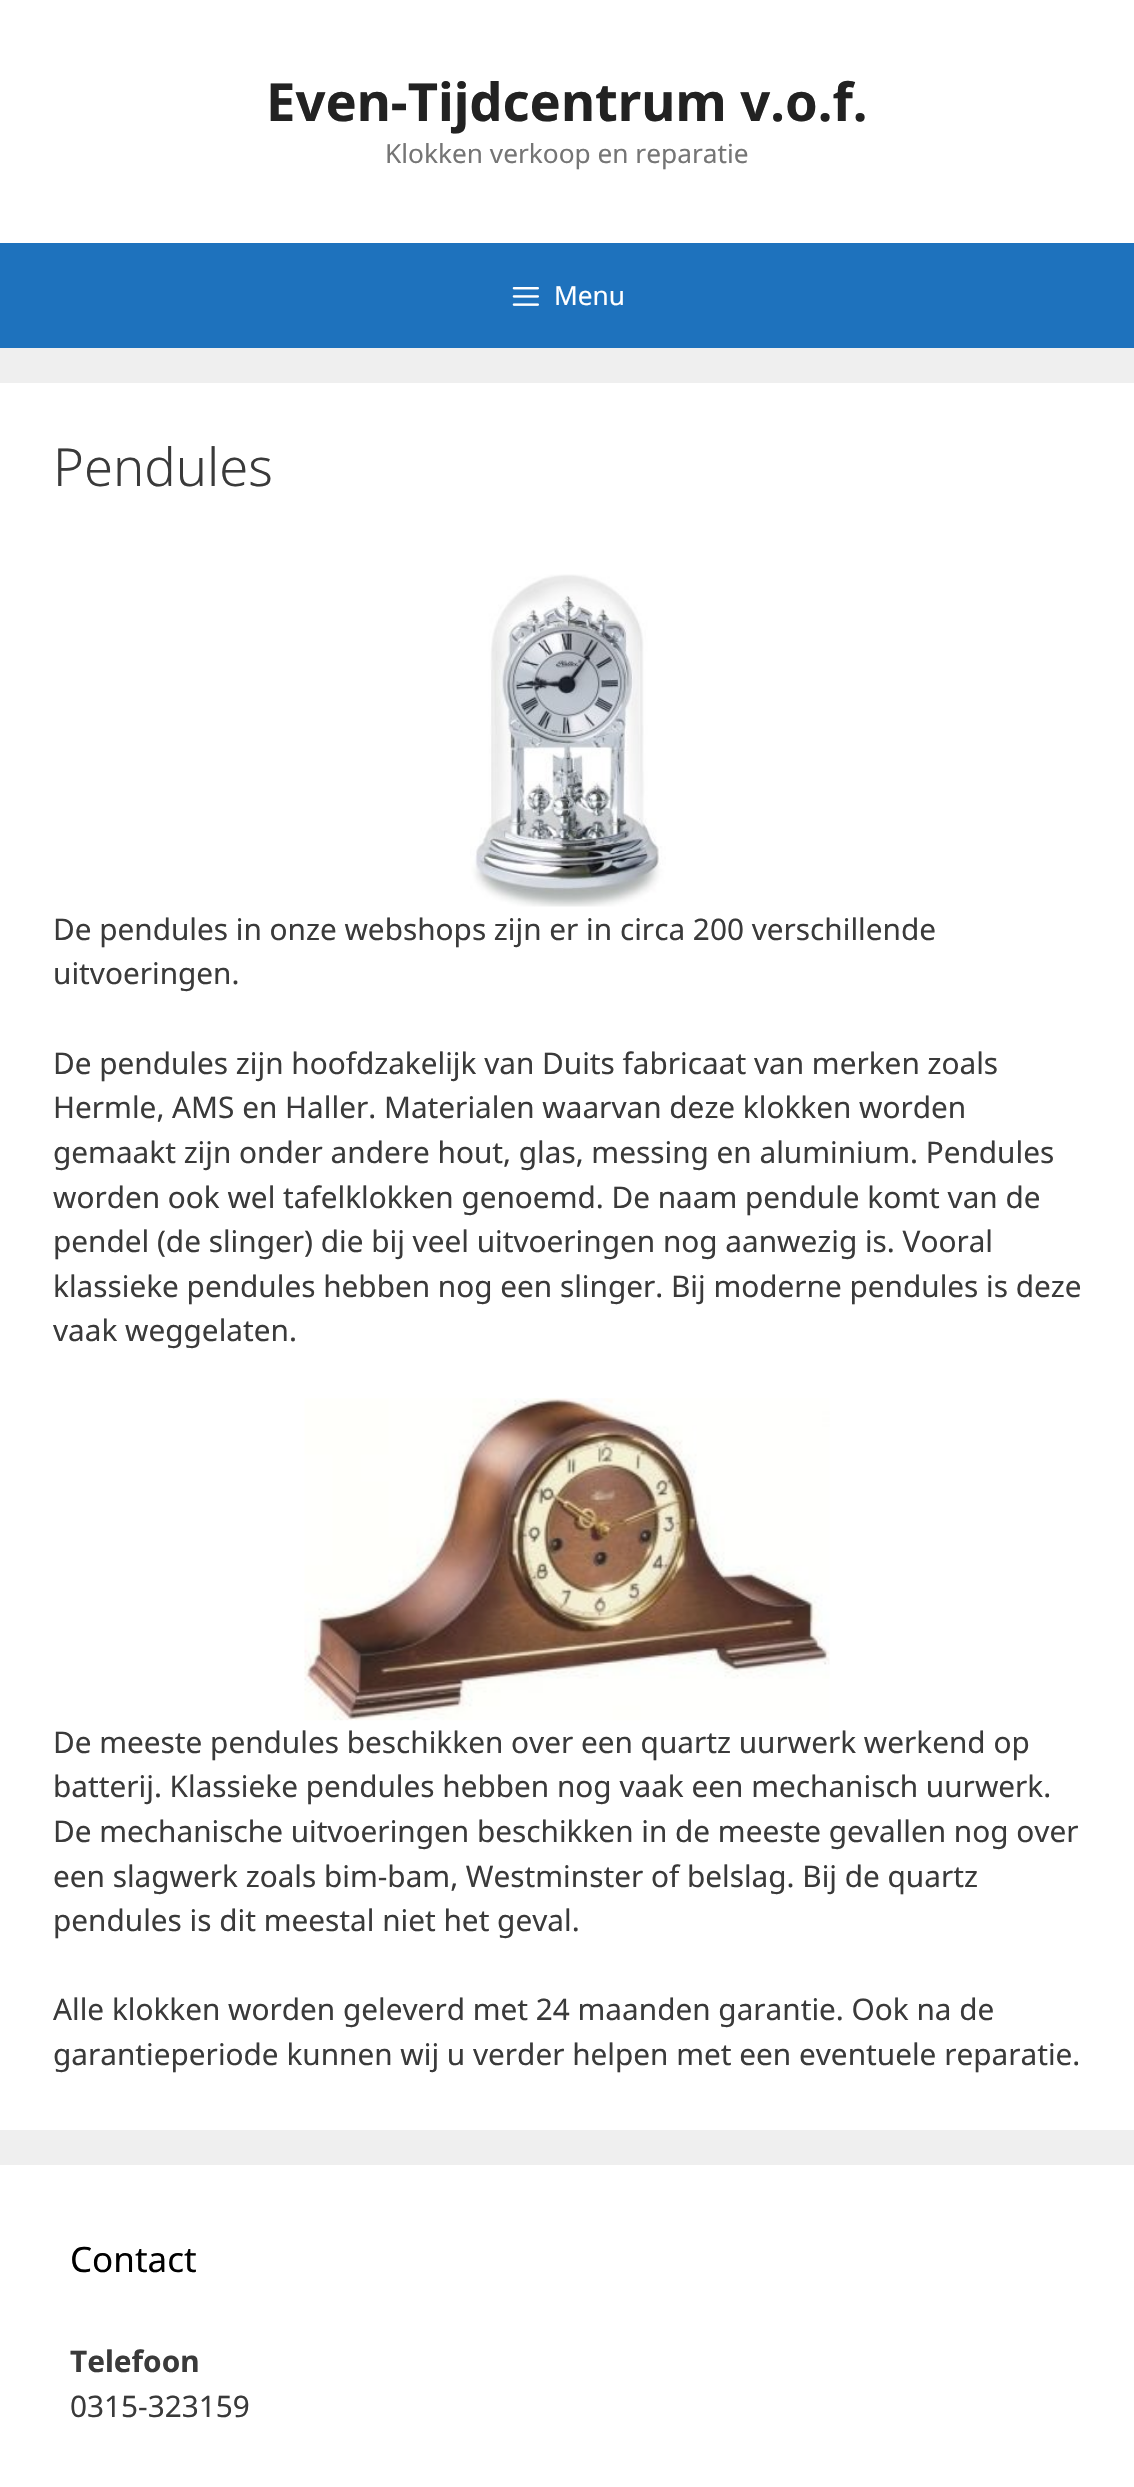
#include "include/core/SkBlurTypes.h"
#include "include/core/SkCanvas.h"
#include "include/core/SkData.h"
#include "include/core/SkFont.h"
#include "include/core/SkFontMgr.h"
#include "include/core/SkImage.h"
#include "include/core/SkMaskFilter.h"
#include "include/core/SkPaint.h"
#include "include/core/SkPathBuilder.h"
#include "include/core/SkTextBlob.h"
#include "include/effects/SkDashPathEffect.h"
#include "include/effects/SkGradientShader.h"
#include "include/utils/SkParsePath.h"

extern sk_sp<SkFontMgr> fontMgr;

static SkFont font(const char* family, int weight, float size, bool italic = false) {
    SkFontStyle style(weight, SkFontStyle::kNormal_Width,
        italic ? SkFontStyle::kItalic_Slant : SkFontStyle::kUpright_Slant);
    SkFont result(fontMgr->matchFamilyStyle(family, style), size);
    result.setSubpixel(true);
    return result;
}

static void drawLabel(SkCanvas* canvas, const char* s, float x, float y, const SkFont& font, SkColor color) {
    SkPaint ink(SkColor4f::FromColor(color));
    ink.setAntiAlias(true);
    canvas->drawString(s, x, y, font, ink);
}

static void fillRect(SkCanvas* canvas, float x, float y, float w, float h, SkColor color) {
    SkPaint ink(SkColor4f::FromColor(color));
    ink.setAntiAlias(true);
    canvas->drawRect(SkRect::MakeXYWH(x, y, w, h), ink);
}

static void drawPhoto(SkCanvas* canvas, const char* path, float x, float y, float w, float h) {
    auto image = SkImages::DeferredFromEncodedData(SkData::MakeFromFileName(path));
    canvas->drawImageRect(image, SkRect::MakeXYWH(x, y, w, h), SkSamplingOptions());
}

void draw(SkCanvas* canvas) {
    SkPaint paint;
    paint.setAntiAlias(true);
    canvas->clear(0xFFEFEFEF);
    fillRect(canvas, 0, 0, 1134, 243, 0xFFFFFFFF);
    SkFont font1 = font("Noto Sans", 700, 52.5f);
    drawLabel(canvas, "Even-Tijdcentrum v.o.f.", 266, 121, font1, 0xFF222222);
    SkFont font2 = font("Noto Sans", 400, 26.25f);
    drawLabel(canvas, "Klokken verkoop en reparatie", 385, 163, font2, 0xFF757575);
    fillRect(canvas, 0, 243, 1134, 105, 0xFF1E72BD);
    drawPhoto(canvas, "assets/img1.png", 512, 287, 27, 19);
    drawLabel(canvas, "Menu", 554, 305, font2, 0xFFFFFFFF);
    fillRect(canvas, 0, 383, 1134, 1747, 0xFFFFFFFF);
    SkFont font3 = font("Noto Sans", 300, 52.5f);
    drawLabel(canvas, "Pendules", 53, 486, font3, 0xFF3A3A3A);
    drawPhoto(canvas, "assets/img2.png", 470, 574, 196, 333);
    SkFont font4 = font("Noto Sans", 400, 29.75f);
    drawLabel(canvas, "De pendules in onze webshops zijn er in circa 200 verschillende", 53, 940, font4, 0xFF3A3A3A);
    drawLabel(canvas, "uitvoeringen.", 53, 984, font4, 0xFF3A3A3A);
    drawLabel(canvas, "De pendules zijn hoofdzakelijk van Duits fabricaat van merken zoals", 53, 1074, font4, 0xFF3A3A3A);
    drawLabel(canvas, "Hermle, AMS en Haller. Materialen waarvan deze klokken worden", 53, 1118, font4, 0xFF3A3A3A);
    drawLabel(canvas, "gemaakt zijn onder andere hout, glas, messing en aluminium. Pendules", 53, 1163, font4, 0xFF3A3A3A);
    drawLabel(canvas, "worden ook wel tafelklokken genoemd. De naam pendule komt van de", 53, 1208, font4, 0xFF3A3A3A);
    drawLabel(canvas, "pendel (de slinger) die bij veel uitvoeringen nog aanwezig is. Vooral", 53, 1252, font4, 0xFF3A3A3A);
    drawLabel(canvas, "klassieke pendules hebben nog een slinger. Bij moderne pendules is deze", 53, 1297, font4, 0xFF3A3A3A);
    drawLabel(canvas, "vaak weggelaten.", 53, 1341, font4, 0xFF3A3A3A);
    drawPhoto(canvas, "assets/img3.png", 304, 1398, 526, 323);
    drawLabel(canvas, "De meeste pendules beschikken over een quartz uurwerk werkend op", 53, 1753, font4, 0xFF3A3A3A);
    drawLabel(canvas, "batterij. Klassieke pendules hebben nog vaak een mechanisch uurwerk.", 53, 1797, font4, 0xFF3A3A3A);
    drawLabel(canvas, "De mechanische uitvoeringen beschikken in de meeste gevallen nog over", 53, 1842, font4, 0xFF3A3A3A);
    drawLabel(canvas, "een slagwerk zoals bim-bam, Westminster of belslag. Bij de quartz", 53, 1887, font4, 0xFF3A3A3A);
    drawLabel(canvas, "pendules is dit meestal niet het geval.", 53, 1931, font4, 0xFF3A3A3A);
    drawLabel(canvas, "Alle klokken worden geleverd met 24 maanden garantie. Ook na de", 53, 2020, font4, 0xFF3A3A3A);
    drawLabel(canvas, "garantieperiode kunnen wij u verder helpen met een eventuele reparatie.", 53, 2065, font4, 0xFF3A3A3A);
    fillRect(canvas, 0, 2165, 1134, 322, 0xFFFFFFFF);
    SkFont font5 = font("Noto Sans", 400, 35);
    drawLabel(canvas, "Contact", 70, 2272, font5, 0xFF000000);
    SkFont font6 = font("Noto Sans", 700, 29.75f);
    drawLabel(canvas, "Telefoon", 70, 2372, font6, 0xFF3A3A3A);
    drawLabel(canvas, "0315-323159", 70, 2417, font4, 0xFF3A3A3A);
}
